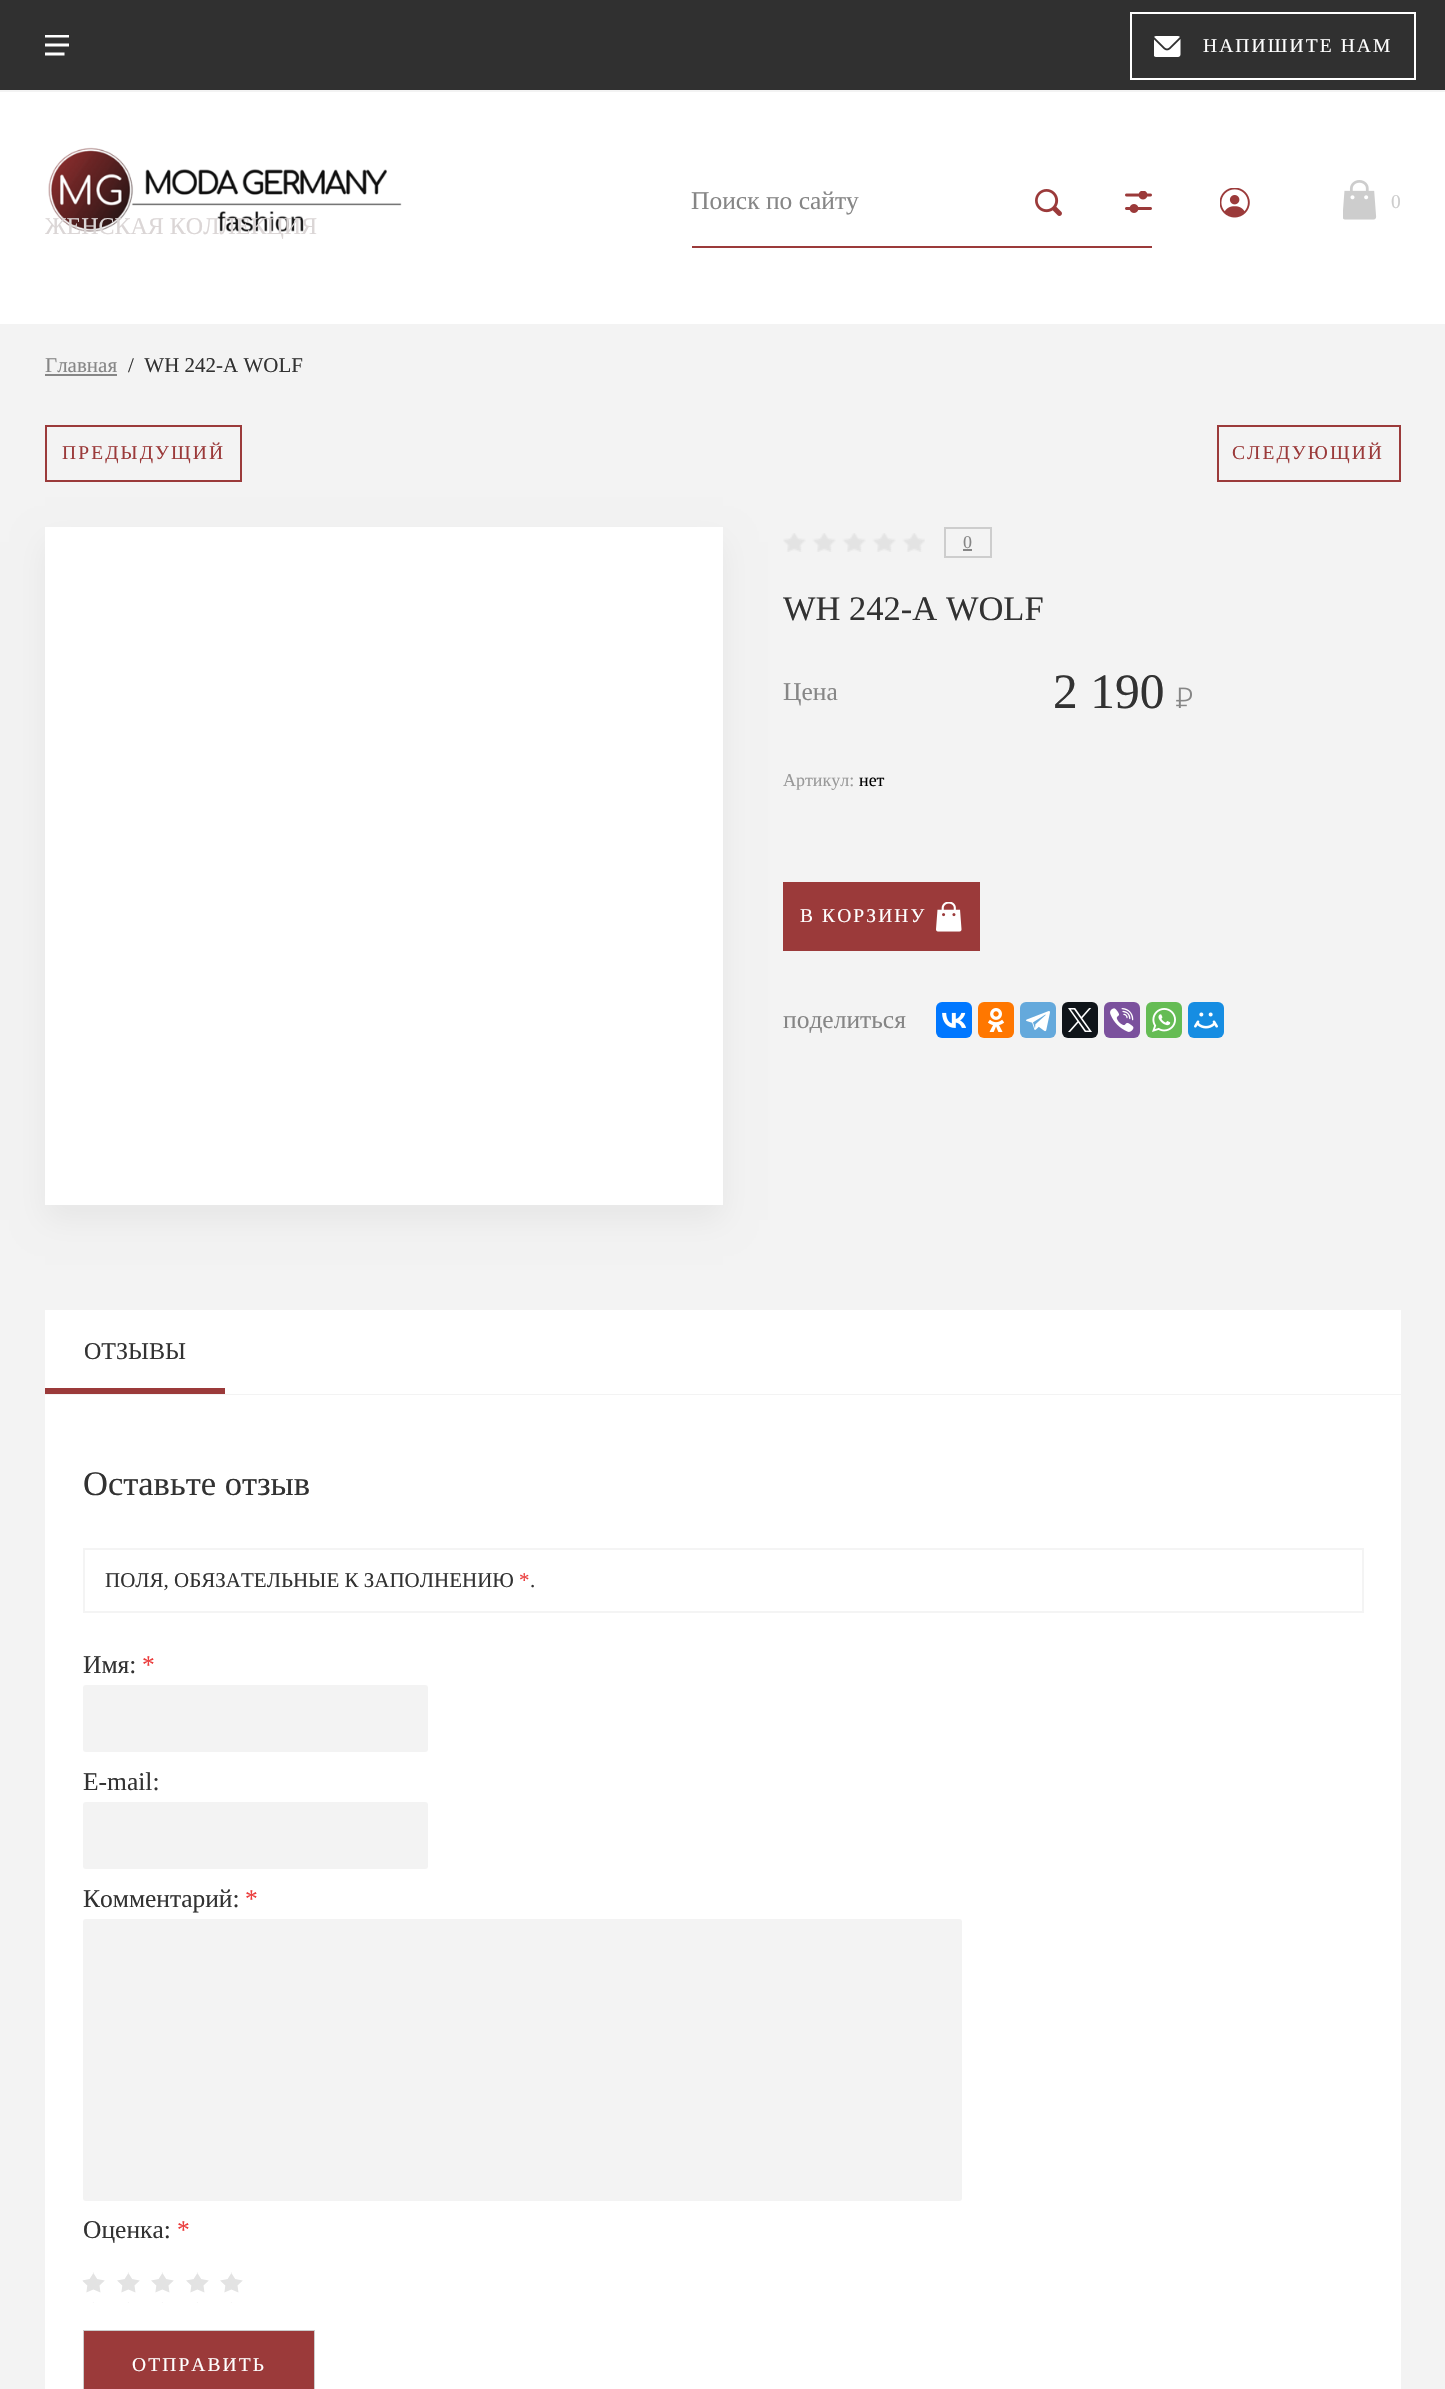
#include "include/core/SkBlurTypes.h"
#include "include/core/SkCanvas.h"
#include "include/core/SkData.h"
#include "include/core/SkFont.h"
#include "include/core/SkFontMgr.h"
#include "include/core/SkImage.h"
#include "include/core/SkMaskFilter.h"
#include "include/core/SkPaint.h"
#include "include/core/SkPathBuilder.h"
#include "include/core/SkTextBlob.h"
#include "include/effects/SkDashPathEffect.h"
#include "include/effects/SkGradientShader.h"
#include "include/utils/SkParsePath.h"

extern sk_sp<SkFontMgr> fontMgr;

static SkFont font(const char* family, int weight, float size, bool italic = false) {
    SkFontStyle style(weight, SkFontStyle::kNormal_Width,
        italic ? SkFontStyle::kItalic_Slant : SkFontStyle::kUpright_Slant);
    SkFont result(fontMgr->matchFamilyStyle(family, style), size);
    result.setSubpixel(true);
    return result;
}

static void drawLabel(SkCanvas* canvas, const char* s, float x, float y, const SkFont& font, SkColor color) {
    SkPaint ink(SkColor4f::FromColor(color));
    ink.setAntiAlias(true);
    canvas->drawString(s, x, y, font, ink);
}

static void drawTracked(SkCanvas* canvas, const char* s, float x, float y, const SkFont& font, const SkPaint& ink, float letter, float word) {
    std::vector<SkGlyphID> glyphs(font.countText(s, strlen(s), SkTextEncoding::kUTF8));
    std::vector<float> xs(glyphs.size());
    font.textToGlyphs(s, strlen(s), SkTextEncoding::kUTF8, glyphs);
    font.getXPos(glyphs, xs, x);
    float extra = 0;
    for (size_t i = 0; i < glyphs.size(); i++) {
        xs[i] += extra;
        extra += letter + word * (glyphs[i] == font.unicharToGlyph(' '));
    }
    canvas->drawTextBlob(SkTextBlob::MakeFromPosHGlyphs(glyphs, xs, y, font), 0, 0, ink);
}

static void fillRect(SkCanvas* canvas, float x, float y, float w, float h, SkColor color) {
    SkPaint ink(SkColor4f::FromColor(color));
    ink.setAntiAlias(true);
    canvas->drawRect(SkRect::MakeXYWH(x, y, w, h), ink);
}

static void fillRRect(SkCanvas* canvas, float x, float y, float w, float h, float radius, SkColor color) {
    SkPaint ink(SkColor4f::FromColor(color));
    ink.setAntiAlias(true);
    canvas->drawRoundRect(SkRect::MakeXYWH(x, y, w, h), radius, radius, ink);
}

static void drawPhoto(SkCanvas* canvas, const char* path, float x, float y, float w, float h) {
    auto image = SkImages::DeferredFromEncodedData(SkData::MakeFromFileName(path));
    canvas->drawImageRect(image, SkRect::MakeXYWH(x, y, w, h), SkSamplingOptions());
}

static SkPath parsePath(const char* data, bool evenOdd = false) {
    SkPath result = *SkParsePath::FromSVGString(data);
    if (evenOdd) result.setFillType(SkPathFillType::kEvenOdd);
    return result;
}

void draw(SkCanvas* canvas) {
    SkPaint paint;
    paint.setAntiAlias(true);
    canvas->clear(0xFFF3F3F3);
    fillRect(canvas, 0, 92, 1445, 232, 0xFFFFFFFF);
    fillRect(canvas, 0, 0, 1445, 90, 0xFF303030);
    drawPhoto(canvas, "assets/img1.png", 45, 35, 24, 21);
    paint.setStroke(true);
    paint.setStrokeWidth(2);
    paint.setColor(0xFFFFFFFF);
    canvas->drawRect(SkRect::MakeXYWH(1131, 13, 284, 66), paint);
    drawPhoto(canvas, "assets/img2.png", 1154, 36, 27, 21);
    SkFont font1 = font("Liberation Serif", 400, 19.5f);
    paint.setStroke(false);
    drawTracked(canvas, "НАПИШИТЕ НАМ", 1203, 52, font1, paint, 2.1f, 0);
    drawPhoto(canvas, "assets/img3.png", 48, 147, 354, 85);
    fillRect(canvas, 692, 246, 460, 2, 0xFF9B3A3A);
    SkFont font2 = font("Liberation Serif", 400, 25.5f);
    drawLabel(canvas, "Поиск по сайту", 691, 209, font2, 0xFF868686);
    drawPhoto(canvas, "assets/img4.png", 1035, 189, 27, 27);
    drawPhoto(canvas, "assets/img5.png", 1125, 191, 27, 22);
    drawPhoto(canvas, "assets/img6.png", 1220, 188, 30, 30);
    drawPhoto(canvas, "assets/img7.png", 1343, 180, 34, 40);
    drawLabel(canvas, "0", 1391, 208, font1, 0xFFCDCDCD);
    SkFont font3 = font("Liberation Serif", 400, 21);
    drawLabel(canvas, "Главная", 45, 372, font3, 0xFF868686);
    fillRect(canvas, 45, 374, 72, 2, 0xFF868686);
    drawLabel(canvas, "/  WH 242-A WOLF", 128, 372, font3, 0xFF323232);
    paint.setStroke(true);
    paint.setColor(0xFF9B3A3A);
    canvas->drawRect(SkRect::MakeXYWH(46, 426, 195, 55), paint);
    paint.setStroke(false);
    drawTracked(canvas, "ПРЕДЫДУЩИЙ", 62, 459, font1, paint, 2.1f, 0);
    paint.setStroke(true);
    canvas->drawRect(SkRect::MakeXYWH(1218, 426, 182, 55), paint);
    paint.setStroke(false);
    drawTracked(canvas, "СЛЕДУЮЩИЙ", 1232, 459, font1, paint, 2.1f, 0);
    paint.setColor(0x0D000000);
    paint.setMaskFilter(SkMaskFilter::MakeBlur(kNormal_SkBlurStyle, 15));
    canvas->drawRect(SkRect::MakeXYWH(45, 542, 678, 678), paint);
    paint.setMaskFilter(nullptr);
    fillRect(canvas, 45, 527, 678, 678, 0xFFFFFFFF);
    drawPhoto(canvas, "assets/img8.png", 783, 533, 142, 19);
    paint.setStroke(true);
    paint.setColor(0xFFCDCDCD);
    canvas->drawRect(SkRect::MakeXYWH(945, 528, 46, 29), paint);
    SkFont font4 = font("Liberation Serif", 400, 18);
    drawLabel(canvas, "0", 963, 548, font4, 0xFF868686);
    fillRect(canvas, 963, 549, 9, 2, 0xFF868686);
    SkFont font5 = font("Liberation Serif", 400, 34.5f);
    drawLabel(canvas, "WH 242-A WOLF", 783, 620, font5, 0xFF323232);
    drawLabel(canvas, "Цена", 783, 700, font2, 0xFF868686);
    SkFont font6 = font("Liberation Serif", 400, 49.5f);
    drawLabel(canvas, "2 190", 1053, 708, font6, 0xFF323232);
    drawPhoto(canvas, "assets/img9.png", 1176, 687, 16, 21);
    drawLabel(canvas, "Артикул:", 783, 786, font4, 0xFF999999);
    drawLabel(canvas, "нет", 859, 786, font4, 0xFF000000);
    fillRect(canvas, 783, 882, 197, 69, 0xFF9B3A3A);
    drawPhoto(canvas, "assets/img10.png", 936, 902, 26, 30);
    paint.setStroke(false);
    paint.setColor(0xFFFFFFFF);
    drawTracked(canvas, "В КОРЗИНУ", 800, 922, font1, paint, 2.1f, 0);
    drawLabel(canvas, "поделиться", 783, 1028, font2, 0xFF868686);
    fillRRect(canvas, 936, 1002, 36, 36, 6, 0xFF0077FF);
    drawPhoto(canvas, "assets/img11.png", 942, 1012, 24, 16);
    fillRRect(canvas, 978, 1002, 36, 36, 6, 0xFFFF7700);
    drawPhoto(canvas, "assets/img12.png", 988, 1008, 17, 24);
    fillRRect(canvas, 1020, 1002, 36, 36, 6, 0xFF64A9DC);
    drawPhoto(canvas, "assets/img13.png", 1026, 1011, 24, 21);
    fillRRect(canvas, 1062, 1002, 36, 36, 6, 0xFF0F1419);
    drawPhoto(canvas, "assets/img14.png", 1068, 1008, 24, 24);
    fillRRect(canvas, 1104, 1002, 36, 36, 6, 0xFF7B519D);
    drawPhoto(canvas, "assets/img15.png", 1110, 1008, 24, 24);
    fillRRect(canvas, 1146, 1002, 36, 36, 6, 0xFF65BC54);
    drawPhoto(canvas, "assets/img16.png", 1152, 1008, 24, 24);
    fillRRect(canvas, 1188, 1002, 36, 36, 6, 0xFF168DE2);
    drawPhoto(canvas, "assets/img17.png", 1194, 1012, 24, 17);
    fillRect(canvas, 45, 1310, 1356, 84, 0xFFFFFFFF);
    fillRect(canvas, 45, 1388, 180, 6, 0xFF9B3A3A);
    SkFont font7 = font("Liberation Serif", 400, 24);
    drawLabel(canvas, "ОТЗЫВЫ", 84, 1359, font7, 0xFF323232);
    fillRect(canvas, 45, 1395, 1356, 994, 0xFFFFFFFF);
    drawLabel(canvas, "Оставьте отзыв", 83, 1495, font5, 0xFF323232);
    paint.setStroke(true);
    paint.setColor(0xFFF4F4F4);
    canvas->drawRect(SkRect::MakeXYWH(84, 1549, 1279, 63), paint);
    drawLabel(canvas, "ПОЛЯ, ОБЯЗАТЕЛЬНЫЕ К ЗАПОЛНЕНИЮ", 105, 1587, font3, 0xFF323232);
    drawLabel(canvas, "*", 519, 1587, font3, 0xFFEB3C3C);
    drawLabel(canvas, ".", 530, 1587, font3, 0xFF323232);
    drawLabel(canvas, "Имя:", 83, 1673, font2, 0xFF323232);
    drawLabel(canvas, "*", 142, 1673, font2, 0xFFEB3C3C);
    fillRRect(canvas, 83, 1685, 345, 67, 3, 0xFFF3F3F3);
    drawLabel(canvas, "E-mail:", 83, 1790, font2, 0xFF323232);
    fillRRect(canvas, 83, 1802, 345, 67, 3, 0xFFF3F3F3);
    drawLabel(canvas, "Комментарий:", 83, 1907, font2, 0xFF323232);
    drawLabel(canvas, "*", 245, 1907, font2, 0xFFEB3C3C);
    fillRRect(canvas, 83, 1919, 879, 282, 3, 0xFFF3F3F3);
    drawLabel(canvas, "Оценка:", 83, 2238, font2, 0xFF323232);
    drawLabel(canvas, "*", 177, 2238, font2, 0xFFEB3C3C);
    drawPhoto(canvas, "assets/img18.png", 82, 2272, 161, 31);
    fillRect(canvas, 84, 2331, 230, 58, 0xFF9B3A3A);
    canvas->save();
    canvas->clipRect(SkRect::MakeXYWH(83, 2330, 232, 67));
    paint.setStroke(false);
    paint.setColor(0xFFCCCCCC);
    canvas->drawPath(parsePath("M-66 2181H464V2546H-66ZM84 2328H316V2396H84Z", true), paint);
    canvas->drawPath(parsePath("M-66 2181H464V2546H-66ZM81 2331H314V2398H81Z", true), paint);
    canvas->restore();
    paint.setColor(0xFFFFFFFF);
    drawTracked(canvas, "ОТПРАВИТЬ", 132, 2371, font1, paint, 2.1f, 0);
    drawLabel(canvas, "ЖЕНСКАЯ КОЛЛЕКЦИЯ", 45, 234, font7, 0xFFDBD6D6);
}
